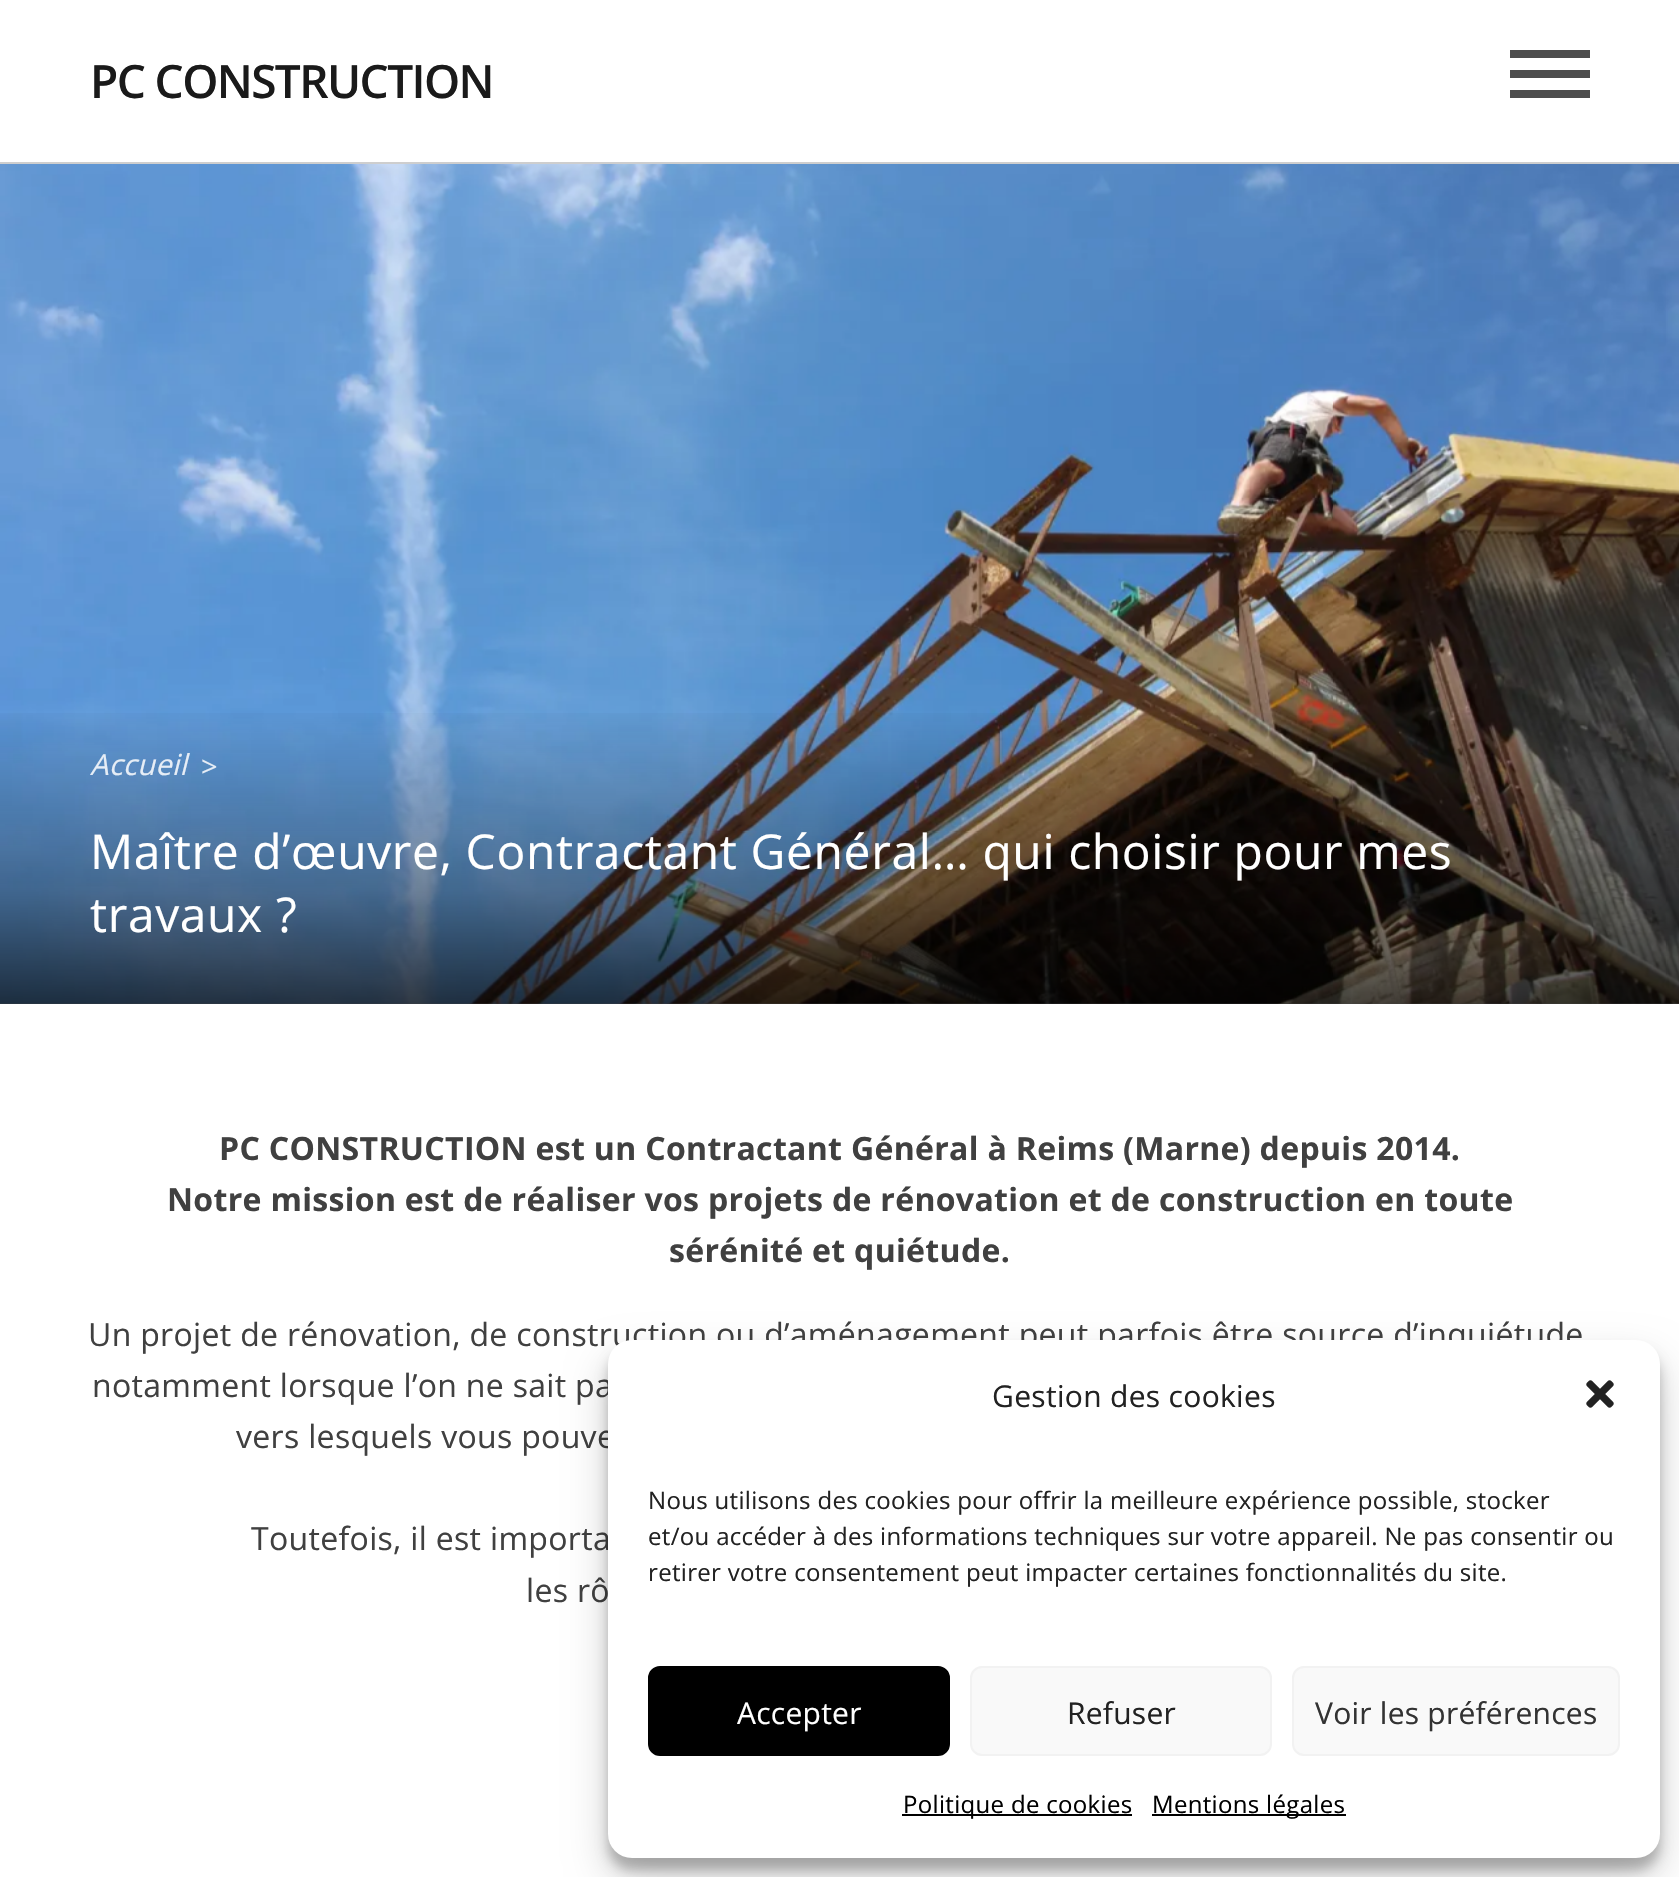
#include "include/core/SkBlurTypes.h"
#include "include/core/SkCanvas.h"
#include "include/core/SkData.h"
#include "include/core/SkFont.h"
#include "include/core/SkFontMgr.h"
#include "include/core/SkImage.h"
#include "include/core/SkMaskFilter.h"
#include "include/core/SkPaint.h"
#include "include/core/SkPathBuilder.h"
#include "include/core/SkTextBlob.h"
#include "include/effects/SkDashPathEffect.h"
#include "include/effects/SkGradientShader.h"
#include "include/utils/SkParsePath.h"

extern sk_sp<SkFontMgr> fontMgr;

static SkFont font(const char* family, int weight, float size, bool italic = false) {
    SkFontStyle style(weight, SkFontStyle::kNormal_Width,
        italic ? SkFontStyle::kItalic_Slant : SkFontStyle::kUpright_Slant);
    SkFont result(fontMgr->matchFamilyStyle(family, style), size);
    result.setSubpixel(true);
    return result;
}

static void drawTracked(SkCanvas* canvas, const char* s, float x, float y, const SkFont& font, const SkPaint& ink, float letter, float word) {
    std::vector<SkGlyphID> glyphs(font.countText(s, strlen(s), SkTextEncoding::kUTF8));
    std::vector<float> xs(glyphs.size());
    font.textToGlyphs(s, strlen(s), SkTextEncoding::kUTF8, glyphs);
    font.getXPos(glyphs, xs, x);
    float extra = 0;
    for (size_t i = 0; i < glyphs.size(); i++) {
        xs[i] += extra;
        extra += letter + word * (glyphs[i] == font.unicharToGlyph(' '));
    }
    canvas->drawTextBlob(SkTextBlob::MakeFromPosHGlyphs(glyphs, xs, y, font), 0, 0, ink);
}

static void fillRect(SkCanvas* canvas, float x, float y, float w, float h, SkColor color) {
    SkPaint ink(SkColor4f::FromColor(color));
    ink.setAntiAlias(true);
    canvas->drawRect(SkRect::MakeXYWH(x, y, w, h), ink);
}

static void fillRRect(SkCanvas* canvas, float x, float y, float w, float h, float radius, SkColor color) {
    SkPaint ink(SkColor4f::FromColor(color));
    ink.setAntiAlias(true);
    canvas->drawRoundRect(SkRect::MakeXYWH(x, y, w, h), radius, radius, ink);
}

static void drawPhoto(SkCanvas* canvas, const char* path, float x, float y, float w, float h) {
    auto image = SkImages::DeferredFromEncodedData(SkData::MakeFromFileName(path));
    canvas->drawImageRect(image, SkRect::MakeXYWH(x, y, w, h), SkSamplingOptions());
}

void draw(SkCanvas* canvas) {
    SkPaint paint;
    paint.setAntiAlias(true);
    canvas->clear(0xFFFFFFFF);
    fillRect(canvas, 0, 162, 1679, 2, 0xFFCECECE);
    SkFont font1 = font("Open Sans", 600, 46);
    paint.setColor(0xFF1A1A1A);
    drawTracked(canvas, "PC CONSTRUCTION", 90, 98, font1, paint, -1.6f, 0);
    fillRect(canvas, 1510, 70, 80, 8, 0xFF4D4D4D);
    fillRect(canvas, 1510, 50, 80, 8, 0xFF4D4D4D);
    fillRect(canvas, 1510, 90, 80, 8, 0xFF4D4D4D);
    drawPhoto(canvas, "assets/img1.png", 0, 164, 1679, 840);
    {
        const SkColor colors[] = {0xB8000000, 0x5C000000, 0x00000000};
        const float stops[] = {0, 0.3f, 0.8f};
        const SkPoint ends[] = {{840, 1004}, {840, 626}};
        paint.setShader(SkGradientShader::MakeLinear(ends, colors, stops, 3, SkTileMode::kClamp));
        paint.setAlpha(255);
    }
    canvas->drawRect(SkRect::MakeXYWH(0, 713, 1679, 291), paint);
    SkFont font2 = font("Open Sans", 400, 29, true);
    paint.setShader(nullptr);
    paint.setColor(0xFFE6EDF6);
    drawTracked(canvas, "Accueil", 90, 775, font2, paint, 0.32f, 0);
    SkFont font3 = font("Open Sans", 400, 29);
    drawTracked(canvas, ">", 201, 777, font3, paint, 0.32f, 0);
    SkFont font4 = font("Open Sans", 400, 48);
    paint.setColor(0xFFFFFFFF);
    drawTracked(canvas, "Maître d’œuvre, Contractant Général… qui choisir pour mes", 90, 869, font4, paint, 0.6f, 0);
    drawTracked(canvas, "travaux ?", 90, 932, font4, paint, 0.6f, 0);
    SkFont font5 = font("Open Sans", 700, 32);
    paint.setColor(0xFF404040);
    drawTracked(canvas, "PC CONSTRUCTION est un Contractant Général à Reims (Marne) depuis 2014.", 219, 1160, font5, paint, 0.32f, 0);
    drawTracked(canvas, "Notre mission est de réaliser vos projets de rénovation et de construction en toute", 167, 1211, font5, paint, 0.32f, 0);
    drawTracked(canvas, "sérénité et quiétude.", 669, 1262, font5, paint, 0.32f, 0);
    SkFont font6 = font("Open Sans", 400, 32);
    drawTracked(canvas, "Un projet de rénovation, de construction ou d’aménagement peut parfois être source d’inquiétude", 88, 1346, font6, paint, 0.32f, 0);
    drawTracked(canvas, "notamment lorsque l’on ne sait pa", 92, 1397, font6, paint, 0.32f, 0);
    drawTracked(canvas, "vers lesquels vous pouve", 236, 1448, font6, paint, 0.32f, 0);
    drawTracked(canvas, "Toutefois, il est importa", 251, 1550, font6, paint, 0.32f, 0);
    drawTracked(canvas, "les rô", 526, 1602, font6, paint, 0.32f, 0);
    paint.setColor(0x3B000000);
    paint.setMaskFilter(SkMaskFilter::MakeBlur(kNormal_SkBlurStyle, 6));
    canvas->drawRoundRect(SkRect::MakeXYWH(608, 1352, 1052, 518), 24, 24, paint);
    paint.setMaskFilter(nullptr);
    paint.setColor(0x30000000);
    paint.setMaskFilter(SkMaskFilter::MakeBlur(kNormal_SkBlurStyle, 20));
    canvas->drawRoundRect(SkRect::MakeXYWH(608, 1360, 1052, 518), 24, 24, paint);
    paint.setMaskFilter(nullptr);
    fillRRect(canvas, 608, 1340, 1052, 518, 24, 0xFFFFFFFF);
    SkFont font7 = font("Open Sans", 400, 30);
    paint.setColor(0xFF222222);
    drawTracked(canvas, "Gestion des cookies", 992, 1407, font7, paint, 0.32f, 0);
    drawPhoto(canvas, "assets/img2.png", 1586, 1380, 28, 28);
    SkFont font8 = font("Open Sans", 400, 24);
    drawTracked(canvas, "Nous utilisons des cookies pour offrir la meilleure expérience possible, stocker", 648, 1509, font8, paint, 0.32f, 0);
    drawTracked(canvas, "et/ou accéder à des informations techniques sur votre appareil. Ne pas consentir ou", 648, 1545, font8, paint, 0.32f, 0);
    drawTracked(canvas, "retirer votre consentement peut impacter certaines fonctionnalités du site.", 648, 1581, font8, paint, 0.32f, 0);
    paint.setColor(0xFF000000);
    canvas->drawRoundRect(SkRect::MakeXYWH(649, 1667, 300, 88), 11, 11, paint);
    paint.setStroke(true);
    paint.setStrokeWidth(2);
    canvas->drawRoundRect(SkRect::MakeXYWH(649, 1667, 300, 88), 11, 11, paint);
    paint.setStroke(false);
    paint.setColor(0xFFFFFFFF);
    drawTracked(canvas, "Accepter", 737, 1724, font7, paint, 0.25f, 0);
    paint.setColor(0xFFF9F9F9);
    canvas->drawRoundRect(SkRect::MakeXYWH(971, 1667, 300, 88), 11, 11, paint);
    paint.setStroke(true);
    paint.setColor(0xFFF2F2F2);
    canvas->drawRoundRect(SkRect::MakeXYWH(971, 1667, 300, 88), 11, 11, paint);
    paint.setStroke(false);
    paint.setColor(0xFF222222);
    drawTracked(canvas, "Refuser", 1067, 1724, font7, paint, 0.25f, 0);
    paint.setColor(0xFFF9F9F9);
    canvas->drawRoundRect(SkRect::MakeXYWH(1293, 1667, 326, 88), 11, 11, paint);
    paint.setStroke(true);
    paint.setColor(0xFFF2F2F2);
    canvas->drawRoundRect(SkRect::MakeXYWH(1293, 1667, 326, 88), 11, 11, paint);
    paint.setStroke(false);
    paint.setColor(0xFF333333);
    drawTracked(canvas, "Voir les préférences", 1315, 1724, font7, paint, 0.25f, 0);
    fillRect(canvas, 902, 1814, 230, 2, 0xFF000000);
    paint.setColor(0xFF000000);
    drawTracked(canvas, "Politique de cookies", 903, 1813, font8, paint, 0.32f, 0);
    fillRect(canvas, 1152, 1814, 194, 2, 0xFF000000);
    drawTracked(canvas, "Mentions légales", 1152, 1813, font8, paint, 0.32f, 0);
}
